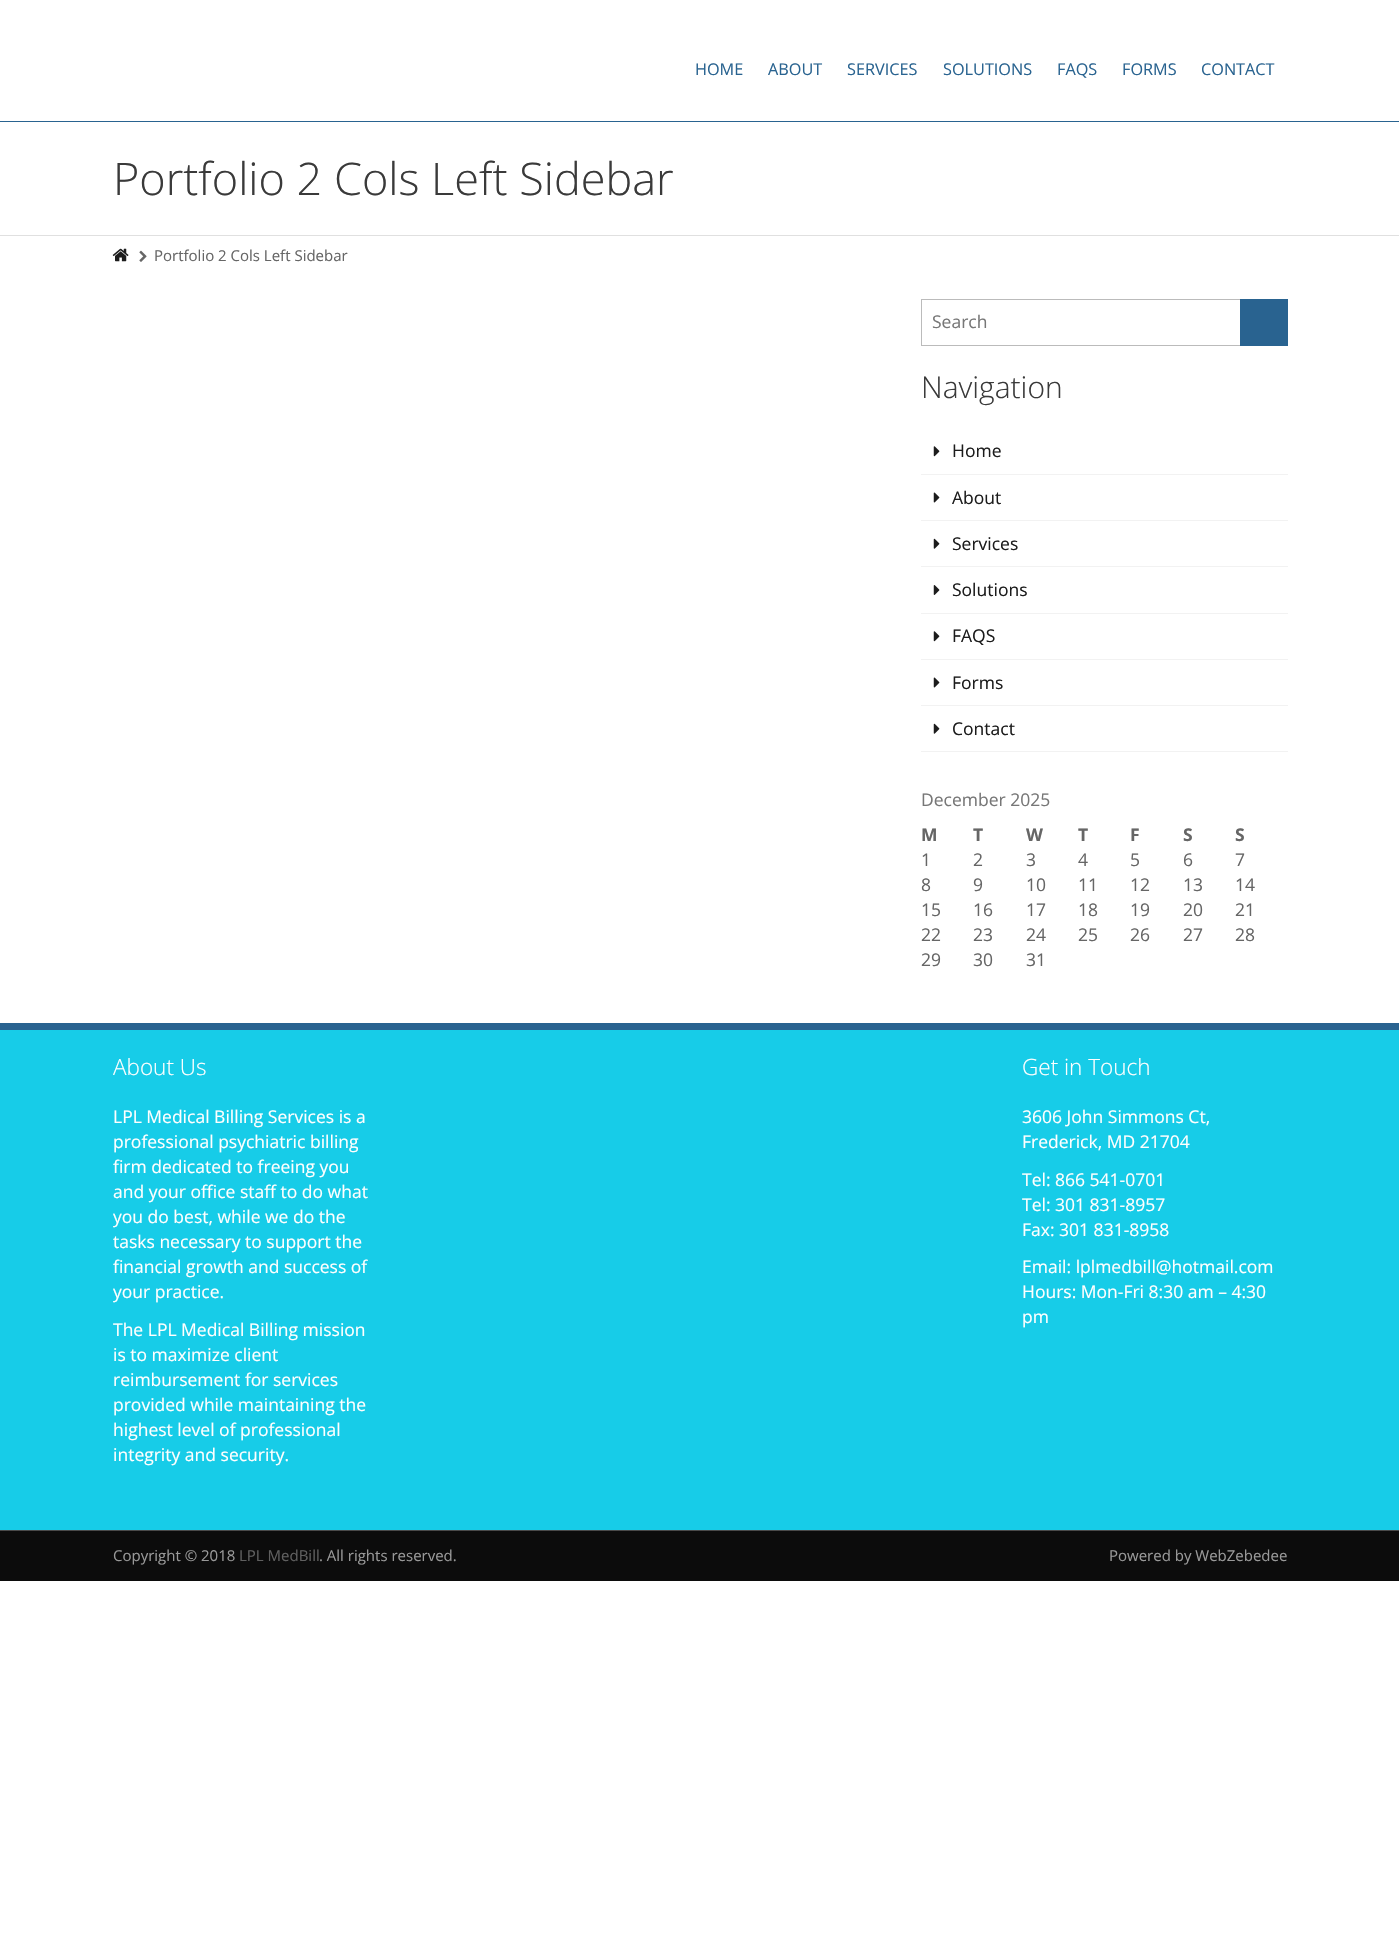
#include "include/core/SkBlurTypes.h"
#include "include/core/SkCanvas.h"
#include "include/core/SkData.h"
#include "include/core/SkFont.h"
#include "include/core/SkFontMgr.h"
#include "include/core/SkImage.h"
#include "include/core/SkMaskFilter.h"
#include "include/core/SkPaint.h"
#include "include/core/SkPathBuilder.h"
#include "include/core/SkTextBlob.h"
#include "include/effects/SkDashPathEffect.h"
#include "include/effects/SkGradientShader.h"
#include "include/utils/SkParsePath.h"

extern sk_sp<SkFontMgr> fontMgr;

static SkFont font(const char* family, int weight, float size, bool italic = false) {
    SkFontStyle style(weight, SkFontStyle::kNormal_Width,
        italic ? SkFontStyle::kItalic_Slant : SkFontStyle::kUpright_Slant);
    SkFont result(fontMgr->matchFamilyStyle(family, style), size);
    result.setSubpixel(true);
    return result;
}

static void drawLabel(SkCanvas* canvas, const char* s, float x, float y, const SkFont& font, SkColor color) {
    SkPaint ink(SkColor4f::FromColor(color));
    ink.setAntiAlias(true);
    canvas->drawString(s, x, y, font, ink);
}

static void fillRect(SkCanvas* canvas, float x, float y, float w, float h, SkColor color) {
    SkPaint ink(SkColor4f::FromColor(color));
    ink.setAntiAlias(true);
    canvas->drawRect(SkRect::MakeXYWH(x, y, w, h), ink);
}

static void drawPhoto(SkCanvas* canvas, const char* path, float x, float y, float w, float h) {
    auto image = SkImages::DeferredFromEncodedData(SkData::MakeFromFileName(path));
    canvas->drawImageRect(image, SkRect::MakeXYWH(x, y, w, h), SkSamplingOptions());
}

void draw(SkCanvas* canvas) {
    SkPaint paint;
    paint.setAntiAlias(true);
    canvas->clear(0xFFFFFFFF);
    fillRect(canvas, 0, 121, 1399, 1, 0xFF296390);
    SkFont font1 = font("Open Sans", 400, 16.25f);
    drawLabel(canvas, "HOME", 695, 75, font1, 0xFF296390);
    drawLabel(canvas, "ABOUT", 768, 75, font1, 0xFF296390);
    drawLabel(canvas, "SERVICES", 847, 75, font1, 0xFF296390);
    drawLabel(canvas, "SOLUTIONS", 943, 75, font1, 0xFF296390);
    drawLabel(canvas, "FAQS", 1057, 75, font1, 0xFF296390);
    drawLabel(canvas, "FORMS", 1122, 75, font1, 0xFF296390);
    drawLabel(canvas, "CONTACT", 1201, 75, font1, 0xFF296390);
    SkFont font2 = font("Open Sans", 300, 45);
    drawLabel(canvas, "Portfolio 2 Cols Left Sidebar", 113, 195, font2, 0xFF3A3A3A);
    fillRect(canvas, 0, 235, 1399, 1, 0xFFE0E0E0);
    drawPhoto(canvas, "assets/img1.png", 112, 248, 17, 14);
    drawPhoto(canvas, "assets/img2.png", 139, 250, 8, 12);
    SkFont font3 = font("Open Sans", 400, 15);
    drawLabel(canvas, "Portfolio 2 Cols Left Sidebar", 154, 261, font3, 0xFF666666);
    paint.setStroke(true);
    paint.setStrokeWidth(1);
    paint.setColor(0xFFBBBBBB);
    canvas->drawRect(SkRect::MakeXYWH(921.5f, 299.5f, 319, 46), paint);
    SkFont font4 = font("Open Sans", 400, 17.5f);
    drawLabel(canvas, "Search", 932, 328, font4, 0xFF777777);
    fillRect(canvas, 1240, 299, 48, 47, 0xFF296390);
    SkFont font5 = font("Open Sans", 300, 30);
    drawLabel(canvas, "Navigation", 921, 398, font5, 0xFF3A3A3A);
    fillRect(canvas, 921, 474, 367, 1, 0xFFF2F2F2);
    drawPhoto(canvas, "assets/img3.png", 933, 446, 7, 11);
    drawLabel(canvas, "Home", 952, 457, font4, 0xFF1C1C1C);
    fillRect(canvas, 921, 520, 367, 1, 0xFFF2F2F2);
    drawPhoto(canvas, "assets/img4.png", 933, 492, 7, 11);
    drawLabel(canvas, "About", 952, 504, font4, 0xFF1C1C1C);
    fillRect(canvas, 921, 566, 367, 1, 0xFFF2F2F2);
    drawPhoto(canvas, "assets/img5.png", 933, 538, 7, 11);
    drawLabel(canvas, "Services", 952, 550, font4, 0xFF1C1C1C);
    fillRect(canvas, 921, 613, 367, 1, 0xFFF2F2F2);
    drawPhoto(canvas, "assets/img6.png", 933, 585, 7, 10);
    drawLabel(canvas, "Solutions", 952, 596, font4, 0xFF1C1C1C);
    fillRect(canvas, 921, 659, 367, 1, 0xFFF2F2F2);
    drawPhoto(canvas, "assets/img3.png", 933, 631, 7, 11);
    drawLabel(canvas, "FAQS", 952, 642, font4, 0xFF1C1C1C);
    fillRect(canvas, 921, 705, 367, 1, 0xFFF2F2F2);
    drawPhoto(canvas, "assets/img4.png", 933, 677, 7, 11);
    drawLabel(canvas, "Forms", 952, 689, font4, 0xFF1C1C1C);
    fillRect(canvas, 921, 751, 367, 1, 0xFFF2F2F2);
    drawPhoto(canvas, "assets/img5.png", 933, 723, 7, 11);
    drawLabel(canvas, "Contact", 952, 735, font4, 0xFF1C1C1C);
    drawLabel(canvas, "December 2025", 921, 806, font4, 0xFF777777);
    SkFont font6 = font("Open Sans", 700, 17.5f);
    drawLabel(canvas, "M", 921, 841, font6, 0xFF666666);
    drawLabel(canvas, "T", 973, 841, font6, 0xFF666666);
    drawLabel(canvas, "W", 1026, 841, font6, 0xFF666666);
    drawLabel(canvas, "T", 1078, 841, font6, 0xFF666666);
    drawLabel(canvas, "F", 1130, 841, font6, 0xFF666666);
    drawLabel(canvas, "S", 1183, 841, font6, 0xFF666666);
    drawLabel(canvas, "S", 1235, 841, font6, 0xFF666666);
    drawLabel(canvas, "1", 921, 866, font4, 0xFF666666);
    drawLabel(canvas, "2", 973, 866, font4, 0xFF666666);
    drawLabel(canvas, "3", 1026, 866, font4, 0xFF666666);
    drawLabel(canvas, "4", 1078, 866, font4, 0xFF666666);
    drawLabel(canvas, "5", 1130, 866, font4, 0xFF666666);
    drawLabel(canvas, "6", 1183, 866, font4, 0xFF666666);
    drawLabel(canvas, "7", 1235, 866, font4, 0xFF666666);
    drawLabel(canvas, "8", 921, 891, font4, 0xFF666666);
    drawLabel(canvas, "9", 973, 891, font4, 0xFF666666);
    drawLabel(canvas, "10", 1026, 891, font4, 0xFF666666);
    drawLabel(canvas, "11", 1078, 891, font4, 0xFF666666);
    drawLabel(canvas, "12", 1130, 891, font4, 0xFF666666);
    drawLabel(canvas, "13", 1183, 891, font4, 0xFF666666);
    drawLabel(canvas, "14", 1235, 891, font4, 0xFF666666);
    drawLabel(canvas, "15", 921, 916, font4, 0xFF666666);
    drawLabel(canvas, "16", 973, 916, font4, 0xFF666666);
    drawLabel(canvas, "17", 1026, 916, font4, 0xFF666666);
    drawLabel(canvas, "18", 1078, 916, font4, 0xFF666666);
    drawLabel(canvas, "19", 1130, 916, font4, 0xFF666666);
    drawLabel(canvas, "20", 1183, 916, font4, 0xFF666666);
    drawLabel(canvas, "21", 1235, 916, font4, 0xFF666666);
    drawLabel(canvas, "22", 921, 941, font4, 0xFF666666);
    drawLabel(canvas, "23", 973, 941, font4, 0xFF666666);
    drawLabel(canvas, "24", 1026, 941, font4, 0xFF666666);
    drawLabel(canvas, "25", 1078, 941, font4, 0xFF666666);
    drawLabel(canvas, "26", 1130, 941, font4, 0xFF666666);
    drawLabel(canvas, "27", 1183, 941, font4, 0xFF666666);
    drawLabel(canvas, "28", 1235, 941, font4, 0xFF666666);
    drawLabel(canvas, "29", 921, 966, font4, 0xFF666666);
    drawLabel(canvas, "30", 973, 966, font4, 0xFF666666);
    drawLabel(canvas, "31", 1026, 966, font4, 0xFF666666);
    fillRect(canvas, 0, 1030, 1399, 500, 0xFF17CCE8);
    fillRect(canvas, 0, 1023, 1399, 7, 0xFF296390);
    SkFont font7 = font("Open Sans", 300, 22.5f);
    drawLabel(canvas, "About Us", 113, 1075, font7, 0xFFFFFFFF);
    drawLabel(canvas, "LPL Medical Billing Services is a", 113, 1123, font4, 0xFFFFFFFF);
    drawLabel(canvas, "professional psychiatric billing", 113, 1148, font4, 0xFFFFFFFF);
    drawLabel(canvas, "firm dedicated to freeing you", 113, 1173, font4, 0xFFFFFFFF);
    drawLabel(canvas, "and your office staff to do what", 113, 1198, font4, 0xFFFFFFFF);
    drawLabel(canvas, "you do best, while we do the", 113, 1223, font4, 0xFFFFFFFF);
    drawLabel(canvas, "tasks necessary to support the", 113, 1248, font4, 0xFFFFFFFF);
    drawLabel(canvas, "financial growth and success of", 113, 1273, font4, 0xFFFFFFFF);
    drawLabel(canvas, "your practice.", 113, 1298, font4, 0xFFFFFFFF);
    drawLabel(canvas, "The LPL Medical Billing mission", 113, 1336, font4, 0xFFFFFFFF);
    drawLabel(canvas, "is to maximize client", 113, 1361, font4, 0xFFFFFFFF);
    drawLabel(canvas, "reimbursement for services", 113, 1386, font4, 0xFFFFFFFF);
    drawLabel(canvas, "provided while maintaining the", 113, 1411, font4, 0xFFFFFFFF);
    drawLabel(canvas, "highest level of professional", 113, 1436, font4, 0xFFFFFFFF);
    drawLabel(canvas, "integrity and security.", 113, 1461, font4, 0xFFFFFFFF);
    drawLabel(canvas, "Get in Touch", 1022, 1075, font7, 0xFFFFFFFF);
    drawLabel(canvas, "3606 John Simmons Ct,", 1022, 1123, font4, 0xFFFFFFFF);
    drawLabel(canvas, "Frederick, MD 21704", 1022, 1148, font4, 0xFFFFFFFF);
    drawLabel(canvas, "Tel: 866 541-0701", 1022, 1186, font4, 0xFFFFFFFF);
    drawLabel(canvas, "Tel: 301 831-8957", 1022, 1211, font4, 0xFFFFFFFF);
    drawLabel(canvas, "Fax: 301 831-8958", 1022, 1236, font4, 0xFFFFFFFF);
    drawLabel(canvas, "Email: lplmedbill@hotmail.com", 1022, 1273, font4, 0xFFFFFFFF);
    drawLabel(canvas, "Hours: Mon-Fri 8:30 am – 4:30", 1022, 1298, font4, 0xFFFFFFFF);
    drawLabel(canvas, "pm", 1022, 1323, font4, 0xFFFFFFFF);
    fillRect(canvas, 0, 1531, 1399, 50, 0xFF0C0C0C);
    fillRect(canvas, 0, 1530, 1399, 1, 0xFF4A4A4A);
    drawLabel(canvas, "Copyright © 2018", 113, 1561, font3, 0xFF999999);
    drawLabel(canvas, "LPL MedBill", 239, 1561, font3, 0xFF606060);
    drawLabel(canvas, ". All rights reserved.", 319, 1561, font3, 0xFF999999);
    drawLabel(canvas, "Powered by WebZebedee", 1109, 1561, font3, 0xFF999999);
}
